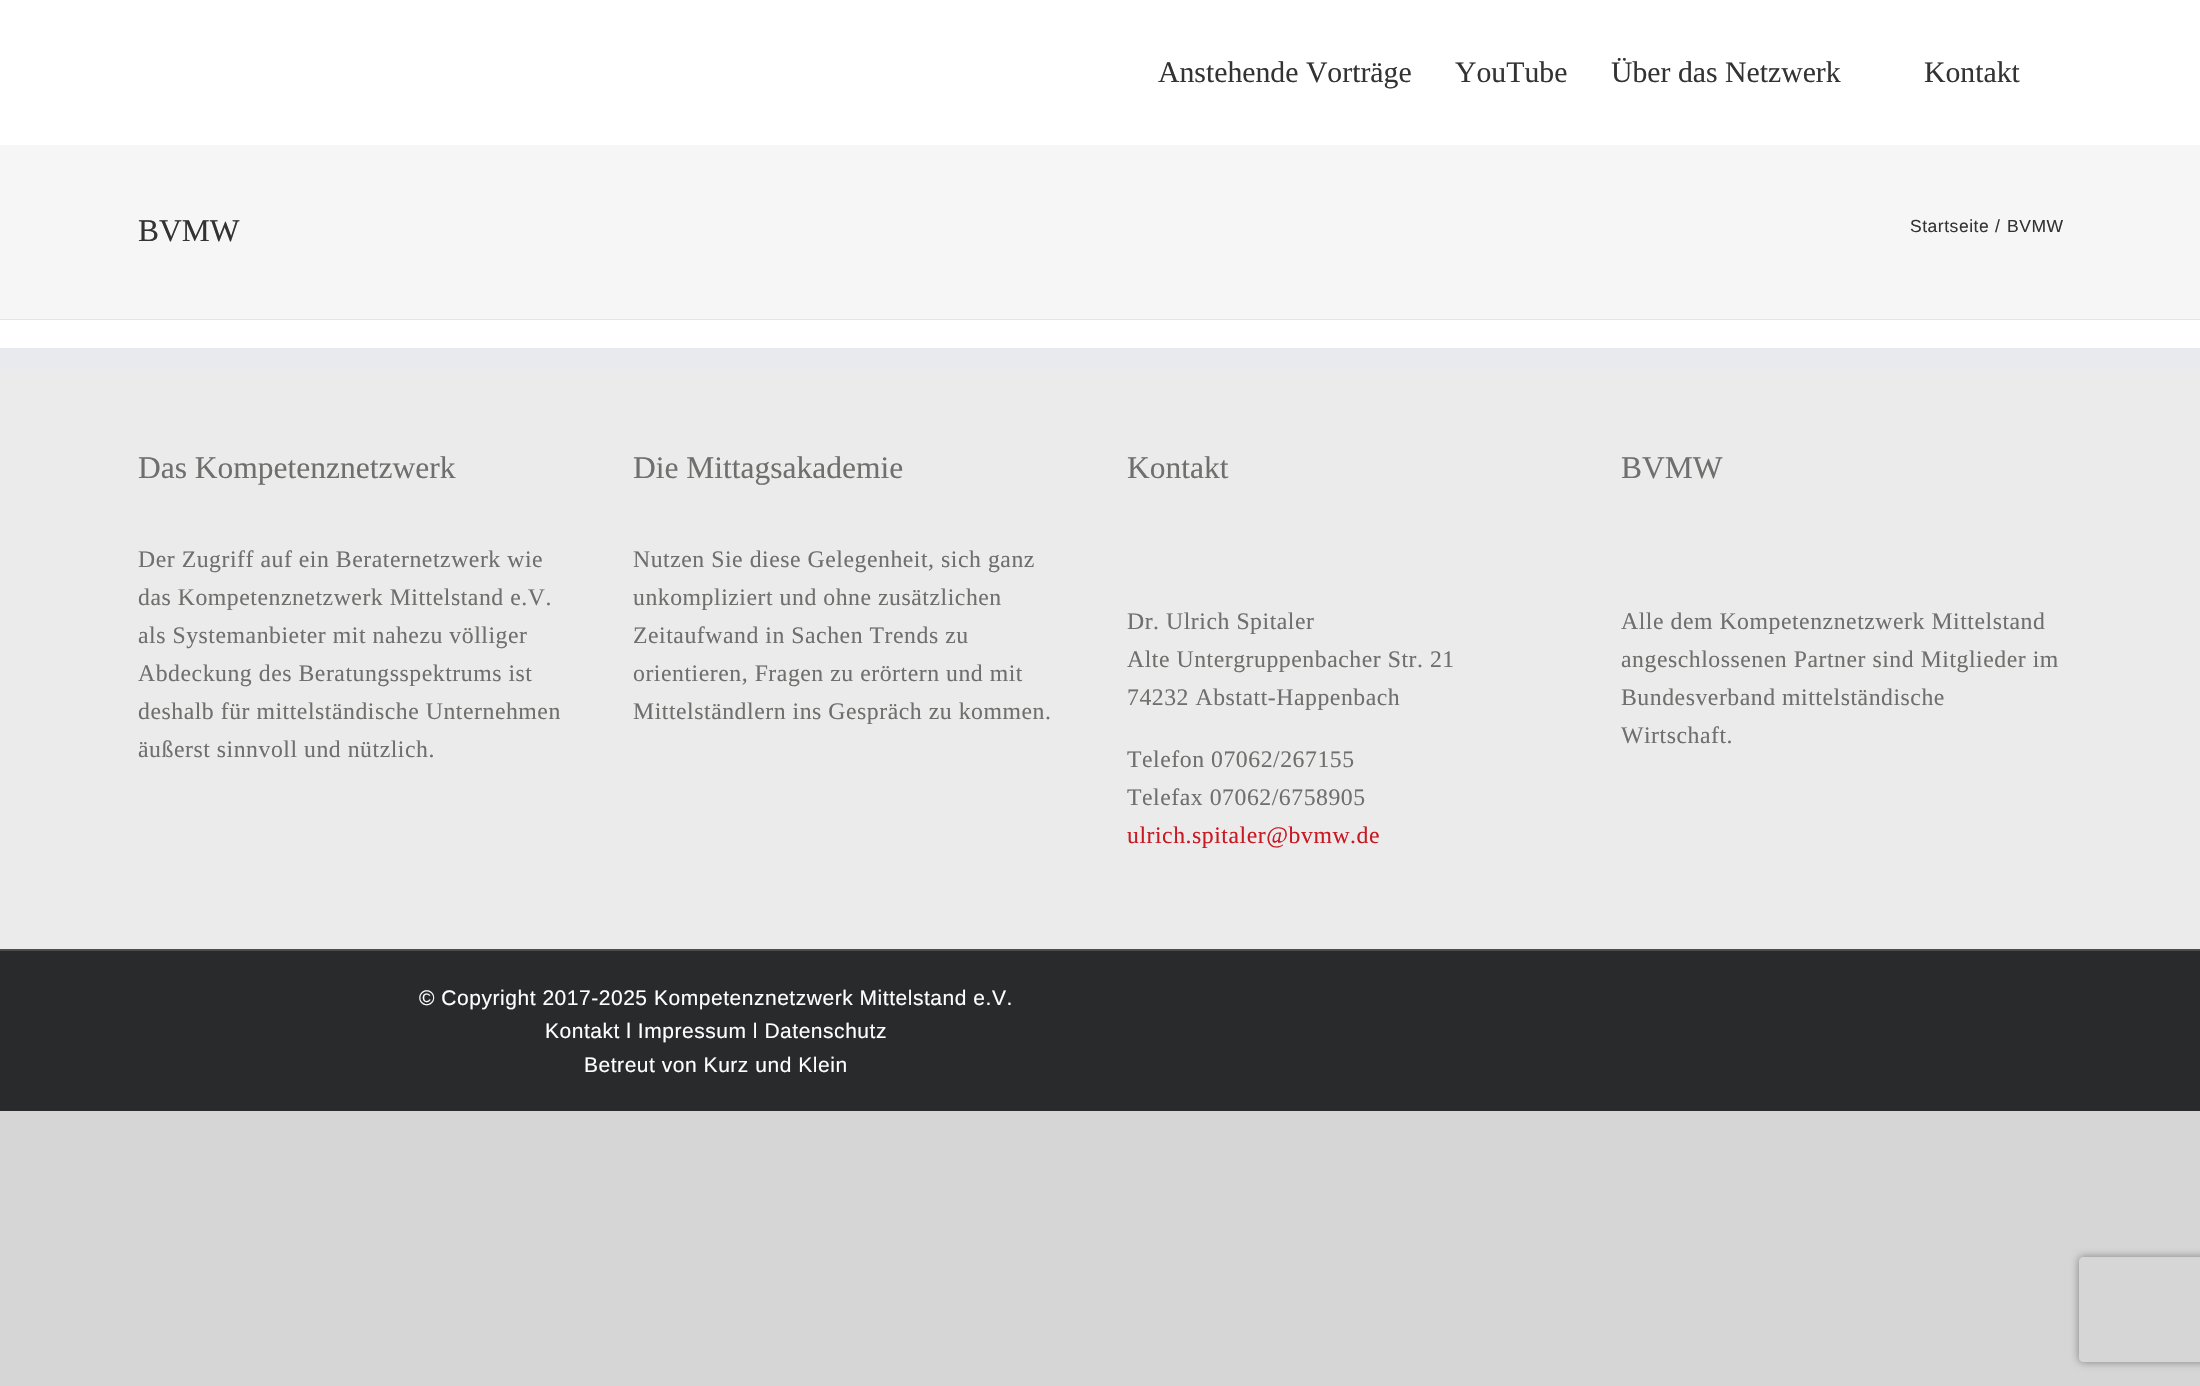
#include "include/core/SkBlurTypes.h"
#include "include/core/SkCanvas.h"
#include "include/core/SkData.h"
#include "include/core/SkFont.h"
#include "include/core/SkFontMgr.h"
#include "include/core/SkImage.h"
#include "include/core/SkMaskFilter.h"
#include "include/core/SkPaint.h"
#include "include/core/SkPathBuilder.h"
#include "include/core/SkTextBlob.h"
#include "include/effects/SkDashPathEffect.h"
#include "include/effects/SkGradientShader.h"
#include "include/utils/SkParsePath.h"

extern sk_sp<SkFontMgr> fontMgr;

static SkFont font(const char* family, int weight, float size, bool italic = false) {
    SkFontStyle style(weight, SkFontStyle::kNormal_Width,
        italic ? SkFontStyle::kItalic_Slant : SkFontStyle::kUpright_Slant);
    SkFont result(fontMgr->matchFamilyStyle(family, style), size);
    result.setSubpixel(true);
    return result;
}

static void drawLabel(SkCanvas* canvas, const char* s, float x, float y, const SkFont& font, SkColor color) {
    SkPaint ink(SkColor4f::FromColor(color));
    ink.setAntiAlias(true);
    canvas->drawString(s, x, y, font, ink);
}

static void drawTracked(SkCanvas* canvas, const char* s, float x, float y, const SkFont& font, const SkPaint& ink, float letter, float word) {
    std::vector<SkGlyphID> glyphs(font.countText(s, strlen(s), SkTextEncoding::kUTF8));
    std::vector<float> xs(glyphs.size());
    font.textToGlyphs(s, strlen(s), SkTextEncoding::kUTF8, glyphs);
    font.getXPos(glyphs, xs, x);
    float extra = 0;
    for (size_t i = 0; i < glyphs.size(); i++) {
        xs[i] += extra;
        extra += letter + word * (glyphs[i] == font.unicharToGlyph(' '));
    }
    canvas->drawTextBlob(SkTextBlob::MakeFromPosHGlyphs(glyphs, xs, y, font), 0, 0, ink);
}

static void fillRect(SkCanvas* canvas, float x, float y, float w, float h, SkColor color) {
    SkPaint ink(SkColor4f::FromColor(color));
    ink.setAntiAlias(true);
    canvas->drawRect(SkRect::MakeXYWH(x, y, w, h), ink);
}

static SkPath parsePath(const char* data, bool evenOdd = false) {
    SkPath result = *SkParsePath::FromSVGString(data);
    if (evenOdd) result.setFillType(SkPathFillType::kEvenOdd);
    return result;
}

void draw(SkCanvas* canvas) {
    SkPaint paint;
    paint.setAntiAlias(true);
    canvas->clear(0xFFD7D6D6);
    fillRect(canvas, 0, 0, 2200, 145, 0xFFFFFFFF);
    SkFont font1 = font("Liberation Serif", 400, 29.75f);
    drawLabel(canvas, "Anstehende Vorträge", 1158, 82, font1, 0xFF333333);
    drawLabel(canvas, "YouTube", 1455, 82, font1, 0xFF333333);
    drawLabel(canvas, "Über das Netzwerk", 1611, 82, font1, 0xFF333333);
    drawLabel(canvas, "Kontakt", 1924, 82, font1, 0xFF333333);
    fillRect(canvas, 0, 145, 2200, 174, 0xFFF6F6F6);
    fillRect(canvas, 0, 319, 2200, 1, 0xFFE3E4E5);
    SkFont font2 = font("Liberation Serif", 400, 31.5f);
    drawLabel(canvas, "BVMW", 138, 241, font2, 0xFF333333);
    SkFont font3 = font("Liberation Sans", 400, 17.5f);
    paint.setColor(0xFF333333);
    drawTracked(canvas, "Startseite", 1910, 232, font3, paint, 0.53f, 0);
    drawTracked(canvas, "/", 1995, 232, font3, paint, 0.53f, 0);
    drawTracked(canvas, "BVMW", 2007, 232, font3, paint, 0.53f, 0);
    fillRect(canvas, 0, 320, 2200, 28, 0xFFFFFFFF);
    fillRect(canvas, 0, 369, 2200, 580, 0xFFEBEBEB);
    fillRect(canvas, 0, 348, 2200, 21, 0xFFE9EAEE);
    drawLabel(canvas, "Das Kompetenznetzwerk", 138, 478, font2, 0xFF6F6F6E);
    SkFont font4 = font("Liberation Serif", 400, 23.75f);
    paint.setColor(0xFF6F6F6E);
    drawTracked(canvas, "Der Zugriff auf ein Beraternetzwerk wie", 138, 567, font4, paint, 0.53f, 0);
    drawTracked(canvas, "das Kompetenznetzwerk Mittelstand e.V.", 138, 605, font4, paint, 0.53f, 0);
    drawTracked(canvas, "als Systemanbieter mit nahezu völliger", 138, 643, font4, paint, 0.53f, 0);
    drawTracked(canvas, "Abdeckung des Beratungsspektrums ist", 138, 681, font4, paint, 0.53f, 0);
    drawTracked(canvas, "deshalb für mittelständische Unternehmen", 138, 719, font4, paint, 0.53f, 0);
    drawTracked(canvas, "äußerst sinnvoll und nützlich.", 138, 757, font4, paint, 0.53f, 0);
    drawLabel(canvas, "Die Mittagsakademie", 633, 478, font2, 0xFF6F6F6E);
    drawTracked(canvas, "Nutzen Sie diese Gelegenheit, sich ganz", 633, 567, font4, paint, 0.53f, 0);
    drawTracked(canvas, "unkompliziert und ohne zusätzlichen", 633, 605, font4, paint, 0.53f, 0);
    drawTracked(canvas, "Zeitaufwand in Sachen Trends zu", 633, 643, font4, paint, 0.53f, 0);
    drawTracked(canvas, "orientieren, Fragen zu erörtern und mit", 633, 681, font4, paint, 0.53f, 0);
    drawTracked(canvas, "Mittelständlern ins Gespräch zu kommen.", 633, 719, font4, paint, 0.53f, 0);
    drawLabel(canvas, "Kontakt", 1127, 478, font2, 0xFF6F6F6E);
    drawTracked(canvas, "Dr. Ulrich Spitaler", 1127, 629, font4, paint, 0.53f, 0);
    drawTracked(canvas, "Alte Untergruppenbacher Str. 21", 1127, 667, font4, paint, 0.53f, 0);
    drawTracked(canvas, "74232 Abstatt-Happenbach", 1127, 705, font4, paint, 0.53f, 0);
    drawTracked(canvas, "Telefon 07062/267155", 1127, 767, font4, paint, 0.53f, 0);
    drawTracked(canvas, "Telefax 07062/6758905", 1127, 805, font4, paint, 0.53f, 0);
    paint.setColor(0xFFC91922);
    drawTracked(canvas, "ulrich.spitaler@bvmw.de", 1127, 843, font4, paint, 0.53f, 0);
    drawLabel(canvas, "BVMW", 1621, 478, font2, 0xFF6F6F6E);
    paint.setColor(0xFF6F6F6E);
    drawTracked(canvas, "Alle dem Kompetenznetzwerk Mittelstand", 1621, 629, font4, paint, 0.53f, 0);
    drawTracked(canvas, "angeschlossenen Partner sind Mitglieder im", 1621, 667, font4, paint, 0.53f, 0);
    drawTracked(canvas, "Bundesverband mittelständische", 1621, 705, font4, paint, 0.53f, 0);
    drawTracked(canvas, "Wirtschaft.", 1621, 743, font4, paint, 0.53f, 0);
    fillRect(canvas, 0, 951, 2200, 160, 0xFF282A2B);
    fillRect(canvas, 0, 949, 2200, 2, 0xFF4B4C4D);
    SkFont font5 = font("Liberation Sans", 400, 21);
    paint.setColor(0xFFFFFFFF);
    drawTracked(canvas, "© Copyright 2017-2025 Kompetenznetzwerk Mittelstand e.V.", 419, 1005, font5, paint, 0.53f, 0);
    drawTracked(canvas, "Kontakt l Impressum l Datenschutz", 545, 1038, font5, paint, 0.53f, 0);
    drawTracked(canvas, "Betreut von Kurz und Klein", 584, 1072, font5, paint, 0.53f, 0);
    canvas->save();
    canvas->clipPath(parsePath("M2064 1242H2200V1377H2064ZM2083 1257H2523C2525 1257 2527 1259 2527 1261V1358C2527 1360 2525 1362 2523 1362H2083C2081 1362 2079 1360 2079 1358V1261C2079 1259 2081 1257 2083 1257Z", true), true);
    paint.setColor(0xFF808080);
    paint.setMaskFilter(SkMaskFilter::MakeBlur(kNormal_SkBlurStyle, 4.5f));
    canvas->drawRoundRect(SkRect::MakeXYWH(2079, 1257, 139, 105), 4, 4, paint);
    paint.setMaskFilter(nullptr);
    canvas->restore();
}
